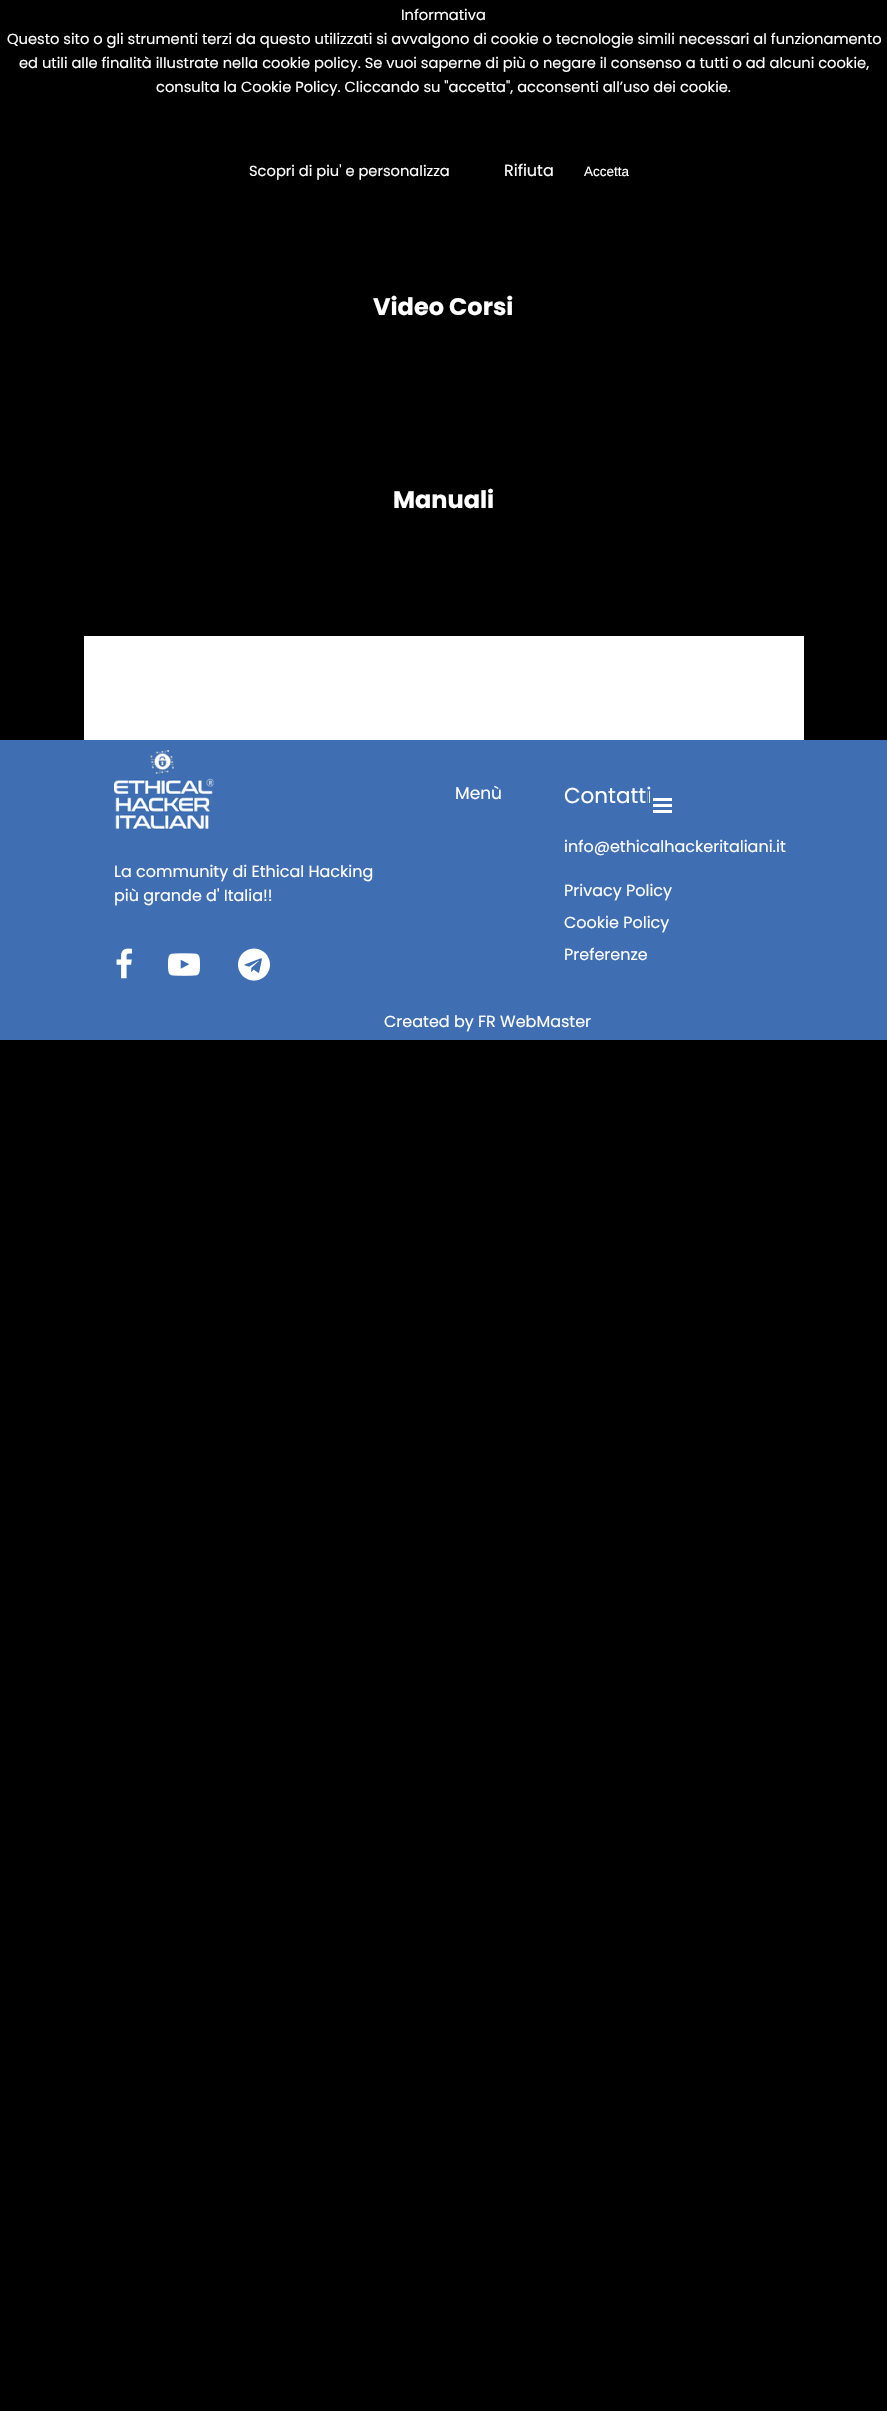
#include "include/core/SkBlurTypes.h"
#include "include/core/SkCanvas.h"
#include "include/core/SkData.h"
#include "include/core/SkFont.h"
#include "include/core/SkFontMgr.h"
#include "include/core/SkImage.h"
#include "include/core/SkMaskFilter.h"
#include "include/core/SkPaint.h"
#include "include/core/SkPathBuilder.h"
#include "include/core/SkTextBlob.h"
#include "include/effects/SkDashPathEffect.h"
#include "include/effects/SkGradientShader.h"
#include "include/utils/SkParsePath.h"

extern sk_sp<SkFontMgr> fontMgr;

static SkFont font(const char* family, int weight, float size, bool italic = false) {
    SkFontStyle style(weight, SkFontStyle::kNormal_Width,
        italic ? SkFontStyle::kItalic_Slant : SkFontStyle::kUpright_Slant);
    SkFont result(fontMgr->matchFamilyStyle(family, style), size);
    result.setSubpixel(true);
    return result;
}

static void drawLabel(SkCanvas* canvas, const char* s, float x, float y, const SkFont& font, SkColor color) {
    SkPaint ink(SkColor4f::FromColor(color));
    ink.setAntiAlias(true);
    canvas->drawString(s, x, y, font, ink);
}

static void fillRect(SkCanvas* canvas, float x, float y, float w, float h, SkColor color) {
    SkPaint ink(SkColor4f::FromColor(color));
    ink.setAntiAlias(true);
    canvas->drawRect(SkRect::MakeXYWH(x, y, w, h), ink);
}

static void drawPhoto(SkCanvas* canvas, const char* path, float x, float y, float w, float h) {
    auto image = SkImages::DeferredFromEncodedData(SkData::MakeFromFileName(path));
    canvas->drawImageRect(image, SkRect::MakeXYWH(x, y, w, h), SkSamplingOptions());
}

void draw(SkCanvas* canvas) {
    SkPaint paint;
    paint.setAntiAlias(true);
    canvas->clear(0xFF000000);
    SkFont font1 = font("Poppins", 400, 14.67f);
    drawLabel(canvas, "Informativa", 401, 20, font1, 0xFFFFFFFF);
    drawLabel(canvas, "Questo sito o gli strumenti terzi da questo utilizzati si avvalgono di cookie o tecnologie simili necessari al funzionamento", 7, 44, font1, 0xFFFFFFFF);
    drawLabel(canvas, "ed utili alle finalità illustrate nella cookie policy. Se vuoi saperne di più o negare il consenso a tutti o ad alcuni cookie,", 19, 68, font1, 0xFFFFFFFF);
    drawLabel(canvas, "consulta la Cookie Policy. Cliccando su \"accetta\", acconsenti all’uso dei cookie.", 156, 92, font1, 0xFFFFFFFF);
    drawLabel(canvas, "Scopri di piu' e personalizza", 249, 176, font1, 0xFFFFFFFF);
    SkFont font2 = font("Poppins", 400, 16);
    drawLabel(canvas, "Rifiuta", 504, 176, font2, 0xFFFFFFFF);
    SkFont font3 = font("Liberation Sans", 400, 13.5f);
    drawLabel(canvas, "Accetta", 584, 176, font3, 0xFFFFFFFF);
    SkFont font4 = font("Poppins", 700, 24);
    drawLabel(canvas, "Video Corsi", 373, 315, font4, 0xFFFFFFFF);
    drawLabel(canvas, "Manuali", 393, 508, font4, 0xFFFFFFFF);
    fillRect(canvas, 84, 636, 720, 104, 0xFFFFFFFF);
    fillRect(canvas, 0, 740, 887, 300, 0xFF3F6FB2);
    drawPhoto(canvas, "assets/img1.png", 114, 750, 100, 80);
    SkFont font5 = font("Poppins", 400, 17);
    drawLabel(canvas, "Menù", 455, 799, font5, 0xFFFFFFFF);
    SkFont font6 = font("Poppins", 400, 21.5f);
    drawLabel(canvas, "Contatti", 564, 803, font6, 0xFFFFFFFF);
    fillRect(canvas, 648, 791, 1, 12, 0xFF3F6FB2);
    fillRect(canvas, 653, 798, 19, 3, 0xFFFFFFFF);
    fillRect(canvas, 653, 804, 19, 3, 0xFFFFFFFF);
    fillRect(canvas, 653, 810, 19, 3, 0xFFFFFFFF);
    drawLabel(canvas, "La community di Ethical Hacking", 114, 877, font2, 0xFFFFFFFF);
    drawLabel(canvas, "più grande d' Italia!!", 114, 901, font2, 0xFFFFFFFF);
    drawLabel(canvas, "info@ethicalhackeritaliani.it", 564, 852, font2, 0xFFFFFFFF);
    drawLabel(canvas, "Privacy Policy", 564, 896, font2, 0xFFFFFFFF);
    drawLabel(canvas, "Cookie Policy", 564, 928, font2, 0xFFFFFFFF);
    drawLabel(canvas, "Preferenze", 564, 960, font2, 0xFFFFFFFF);
    drawPhoto(canvas, "assets/img2.png", 116, 948, 16, 31);
    drawPhoto(canvas, "assets/img3.png", 168, 953, 32, 23);
    drawPhoto(canvas, "assets/img4.png", 238, 948, 32, 33);
    drawLabel(canvas, "Created by FR WebMaster", 384, 1027, font2, 0xFFFFFFFF);
}
